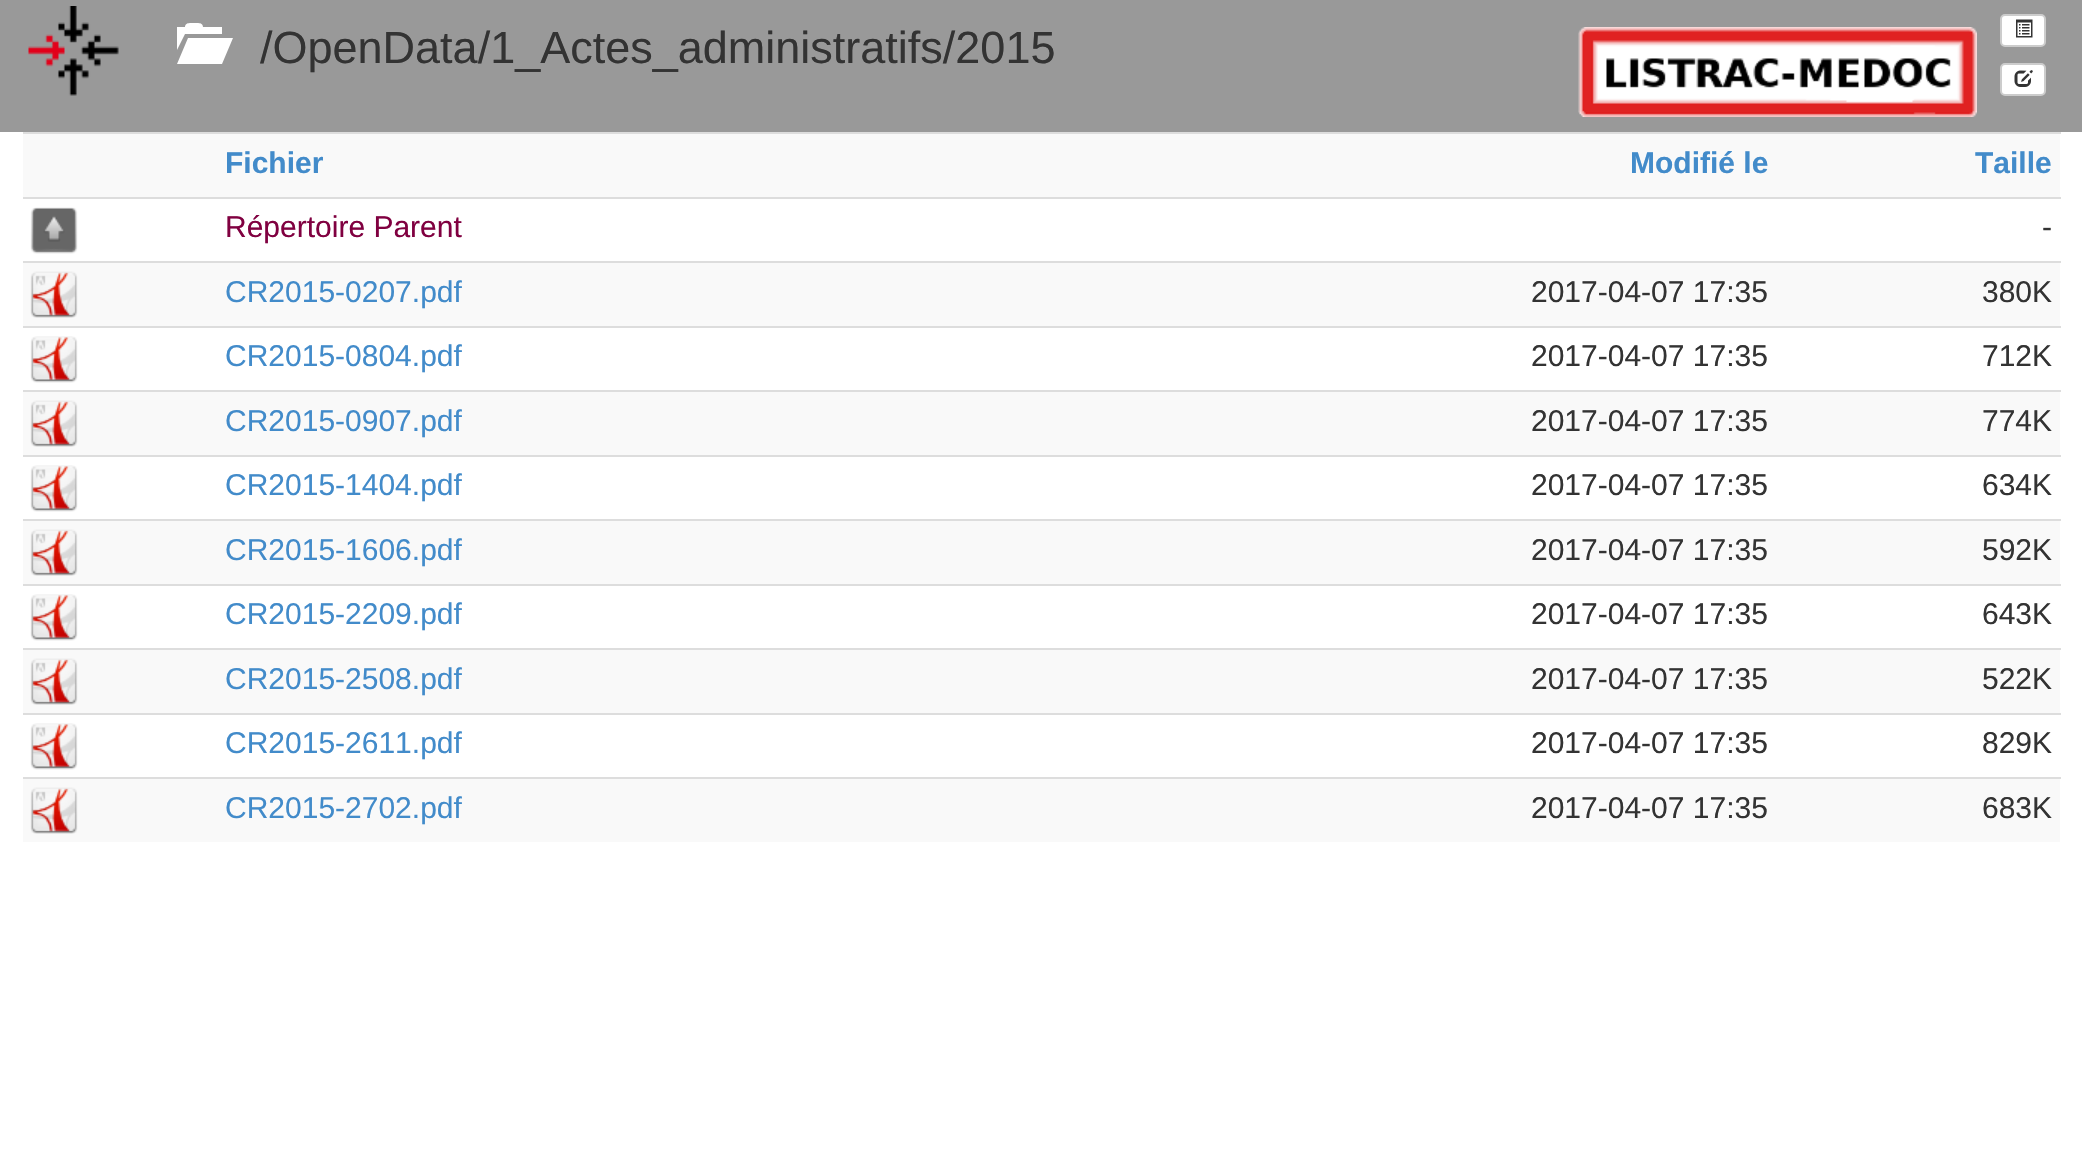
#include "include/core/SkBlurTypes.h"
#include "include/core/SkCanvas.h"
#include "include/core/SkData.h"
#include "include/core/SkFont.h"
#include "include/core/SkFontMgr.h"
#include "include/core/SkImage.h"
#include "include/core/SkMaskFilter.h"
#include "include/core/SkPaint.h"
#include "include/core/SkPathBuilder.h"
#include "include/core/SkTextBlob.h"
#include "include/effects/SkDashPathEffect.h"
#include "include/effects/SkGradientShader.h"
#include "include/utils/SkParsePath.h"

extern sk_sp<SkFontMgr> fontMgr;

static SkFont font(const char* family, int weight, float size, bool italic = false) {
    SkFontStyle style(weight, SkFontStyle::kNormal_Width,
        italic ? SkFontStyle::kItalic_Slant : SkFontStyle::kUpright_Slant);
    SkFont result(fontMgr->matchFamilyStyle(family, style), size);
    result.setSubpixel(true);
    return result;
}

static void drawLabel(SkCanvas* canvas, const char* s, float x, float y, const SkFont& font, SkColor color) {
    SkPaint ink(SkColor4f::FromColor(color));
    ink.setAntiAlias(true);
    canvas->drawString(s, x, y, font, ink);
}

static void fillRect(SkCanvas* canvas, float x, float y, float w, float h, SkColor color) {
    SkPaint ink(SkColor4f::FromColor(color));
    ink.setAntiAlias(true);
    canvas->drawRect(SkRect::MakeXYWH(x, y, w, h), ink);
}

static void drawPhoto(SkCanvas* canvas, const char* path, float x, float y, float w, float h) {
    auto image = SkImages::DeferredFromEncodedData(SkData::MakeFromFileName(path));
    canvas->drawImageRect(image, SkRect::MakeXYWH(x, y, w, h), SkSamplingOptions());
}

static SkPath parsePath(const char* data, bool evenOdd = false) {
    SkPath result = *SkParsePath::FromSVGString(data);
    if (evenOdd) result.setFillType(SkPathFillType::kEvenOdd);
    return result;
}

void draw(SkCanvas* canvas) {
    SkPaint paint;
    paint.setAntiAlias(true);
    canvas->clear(0xFFFFFFFF);
    fillRect(canvas, 0, 0, 2082, 132, 0xFF999999);
    drawPhoto(canvas, "assets/img1.png", 28, 6, 91, 90);
    paint.setColor(0xFFFFFFFF);
    canvas->drawPath(parsePath("M177 64L188 38H233L222 64ZM177 50V27H185C185 22 191 23 194 23C197 23 203 22 203 27H222V34H185Z"), paint);
    SkFont font1 = font("Liberation Sans", 400, 45);
    drawLabel(canvas, "/OpenData/1_Actes_administratifs/2015", 260, 63, font1, 0xFF333333);
    canvas->drawRoundRect(SkRect::MakeXYWH(2001, 15, 44, 31), 4, 4, paint);
    paint.setStroke(true);
    paint.setStrokeWidth(2);
    paint.setColor(0xFFCCCCCC);
    canvas->drawRoundRect(SkRect::MakeXYWH(2001, 15, 44, 31), 4, 4, paint);
    drawPhoto(canvas, "assets/img2.png", 2016, 19, 17, 19);
    paint.setStroke(false);
    paint.setColor(0xFFFFFFFF);
    canvas->drawRoundRect(SkRect::MakeXYWH(2001, 64, 44, 31), 4, 4, paint);
    paint.setStroke(true);
    paint.setColor(0xFFCCCCCC);
    canvas->drawRoundRect(SkRect::MakeXYWH(2001, 64, 44, 31), 4, 4, paint);
    drawPhoto(canvas, "assets/img3.png", 2014, 70, 19, 17);
    drawPhoto(canvas, "assets/img4.png", 1578, 27, 399, 90);
    fillRect(canvas, 23, 134, 2037, 63, 0xFFF9F9F9);
    SkFont font2 = font("Liberation Sans", 700, 30);
    drawLabel(canvas, "Fichier", 225, 173, font2, 0xFF428BCA);
    drawLabel(canvas, "Modifié le", 1630, 173, font2, 0xFF428BCA);
    fillRect(canvas, 23, 132, 2038, 2, 0xFFDDDDDD);
    drawLabel(canvas, "Taille", 1975, 173, font2, 0xFF428BCA);
    drawPhoto(canvas, "assets/img5.png", 30, 207, 48, 47);
    SkFont font3 = font("Liberation Sans", 400, 30);
    drawLabel(canvas, "Répertoire Parent", 225, 237, font3, 0xFF800040);
    fillRect(canvas, 23, 197, 2038, 2, 0xFFDDDDDD);
    drawLabel(canvas, "-", 2042, 237, font3, 0xFF333333);
    fillRect(canvas, 23, 263, 2037, 63, 0xFFF9F9F9);
    drawPhoto(canvas, "assets/img6.png", 30, 271, 48, 47);
    drawLabel(canvas, "CR2015-0207.pdf", 225, 302, font3, 0xFF428BCA);
    drawLabel(canvas, "2017-04-07 17:35", 1531, 302, font3, 0xFF333333);
    fillRect(canvas, 23, 261, 2038, 2, 0xFFDDDDDD);
    drawLabel(canvas, "380K", 1982, 302, font3, 0xFF333333);
    drawPhoto(canvas, "assets/img7.png", 30, 336, 48, 47);
    drawLabel(canvas, "CR2015-0804.pdf", 225, 366, font3, 0xFF428BCA);
    drawLabel(canvas, "2017-04-07 17:35", 1531, 366, font3, 0xFF333333);
    fillRect(canvas, 23, 326, 2038, 2, 0xFFDDDDDD);
    drawLabel(canvas, "712K", 1982, 366, font3, 0xFF333333);
    fillRect(canvas, 23, 392, 2037, 63, 0xFFF9F9F9);
    drawPhoto(canvas, "assets/img6.png", 30, 400, 48, 47);
    drawLabel(canvas, "CR2015-0907.pdf", 225, 431, font3, 0xFF428BCA);
    drawLabel(canvas, "2017-04-07 17:35", 1531, 431, font3, 0xFF333333);
    fillRect(canvas, 23, 390, 2038, 2, 0xFFDDDDDD);
    drawLabel(canvas, "774K", 1982, 431, font3, 0xFF333333);
    drawPhoto(canvas, "assets/img7.png", 30, 465, 48, 47);
    drawLabel(canvas, "CR2015-1404.pdf", 225, 495, font3, 0xFF428BCA);
    drawLabel(canvas, "2017-04-07 17:35", 1531, 495, font3, 0xFF333333);
    fillRect(canvas, 23, 455, 2038, 2, 0xFFDDDDDD);
    drawLabel(canvas, "634K", 1982, 495, font3, 0xFF333333);
    fillRect(canvas, 23, 521, 2037, 63, 0xFFF9F9F9);
    drawPhoto(canvas, "assets/img6.png", 30, 529, 48, 47);
    drawLabel(canvas, "CR2015-1606.pdf", 225, 560, font3, 0xFF428BCA);
    drawLabel(canvas, "2017-04-07 17:35", 1531, 560, font3, 0xFF333333);
    fillRect(canvas, 23, 519, 2038, 2, 0xFFDDDDDD);
    drawLabel(canvas, "592K", 1982, 560, font3, 0xFF333333);
    drawPhoto(canvas, "assets/img7.png", 30, 594, 48, 47);
    drawLabel(canvas, "CR2015-2209.pdf", 225, 624, font3, 0xFF428BCA);
    drawLabel(canvas, "2017-04-07 17:35", 1531, 624, font3, 0xFF333333);
    fillRect(canvas, 23, 584, 2038, 2, 0xFFDDDDDD);
    drawLabel(canvas, "643K", 1982, 624, font3, 0xFF333333);
    fillRect(canvas, 23, 650, 2037, 63, 0xFFF9F9F9);
    drawPhoto(canvas, "assets/img6.png", 30, 658, 48, 47);
    drawLabel(canvas, "CR2015-2508.pdf", 225, 689, font3, 0xFF428BCA);
    drawLabel(canvas, "2017-04-07 17:35", 1531, 689, font3, 0xFF333333);
    fillRect(canvas, 23, 648, 2038, 2, 0xFFDDDDDD);
    drawLabel(canvas, "522K", 1982, 689, font3, 0xFF333333);
    drawPhoto(canvas, "assets/img7.png", 30, 723, 48, 47);
    drawLabel(canvas, "CR2015-2611.pdf", 225, 753, font3, 0xFF428BCA);
    drawLabel(canvas, "2017-04-07 17:35", 1531, 753, font3, 0xFF333333);
    fillRect(canvas, 23, 713, 2038, 2, 0xFFDDDDDD);
    drawLabel(canvas, "829K", 1982, 753, font3, 0xFF333333);
    fillRect(canvas, 23, 779, 2037, 63, 0xFFF9F9F9);
    drawPhoto(canvas, "assets/img6.png", 30, 787, 48, 47);
    drawLabel(canvas, "CR2015-2702.pdf", 225, 818, font3, 0xFF428BCA);
    drawLabel(canvas, "2017-04-07 17:35", 1531, 818, font3, 0xFF333333);
    fillRect(canvas, 23, 777, 2038, 2, 0xFFDDDDDD);
    drawLabel(canvas, "683K", 1982, 818, font3, 0xFF333333);
}
